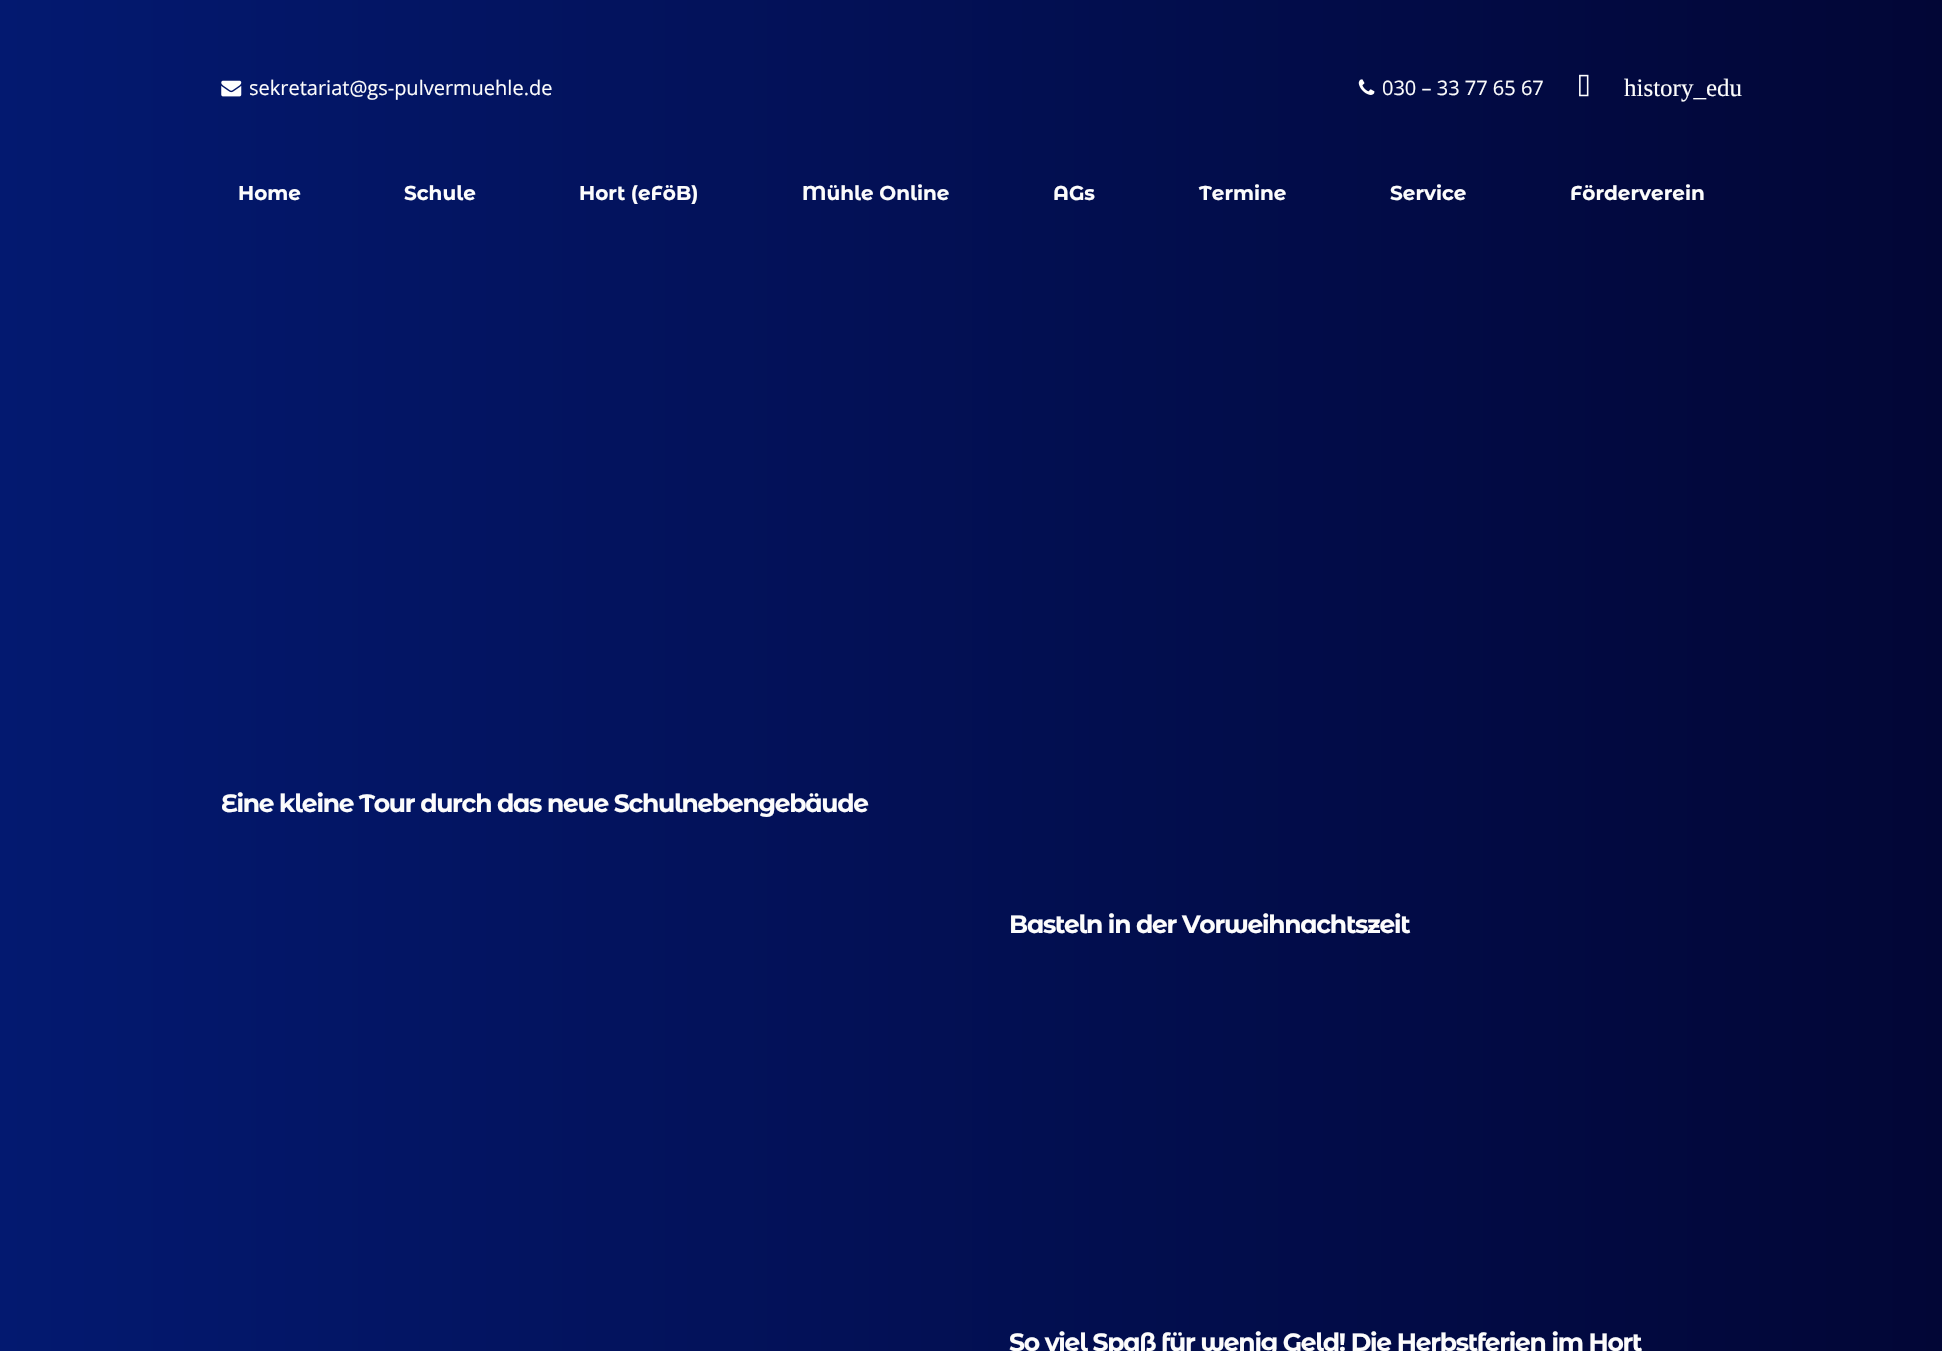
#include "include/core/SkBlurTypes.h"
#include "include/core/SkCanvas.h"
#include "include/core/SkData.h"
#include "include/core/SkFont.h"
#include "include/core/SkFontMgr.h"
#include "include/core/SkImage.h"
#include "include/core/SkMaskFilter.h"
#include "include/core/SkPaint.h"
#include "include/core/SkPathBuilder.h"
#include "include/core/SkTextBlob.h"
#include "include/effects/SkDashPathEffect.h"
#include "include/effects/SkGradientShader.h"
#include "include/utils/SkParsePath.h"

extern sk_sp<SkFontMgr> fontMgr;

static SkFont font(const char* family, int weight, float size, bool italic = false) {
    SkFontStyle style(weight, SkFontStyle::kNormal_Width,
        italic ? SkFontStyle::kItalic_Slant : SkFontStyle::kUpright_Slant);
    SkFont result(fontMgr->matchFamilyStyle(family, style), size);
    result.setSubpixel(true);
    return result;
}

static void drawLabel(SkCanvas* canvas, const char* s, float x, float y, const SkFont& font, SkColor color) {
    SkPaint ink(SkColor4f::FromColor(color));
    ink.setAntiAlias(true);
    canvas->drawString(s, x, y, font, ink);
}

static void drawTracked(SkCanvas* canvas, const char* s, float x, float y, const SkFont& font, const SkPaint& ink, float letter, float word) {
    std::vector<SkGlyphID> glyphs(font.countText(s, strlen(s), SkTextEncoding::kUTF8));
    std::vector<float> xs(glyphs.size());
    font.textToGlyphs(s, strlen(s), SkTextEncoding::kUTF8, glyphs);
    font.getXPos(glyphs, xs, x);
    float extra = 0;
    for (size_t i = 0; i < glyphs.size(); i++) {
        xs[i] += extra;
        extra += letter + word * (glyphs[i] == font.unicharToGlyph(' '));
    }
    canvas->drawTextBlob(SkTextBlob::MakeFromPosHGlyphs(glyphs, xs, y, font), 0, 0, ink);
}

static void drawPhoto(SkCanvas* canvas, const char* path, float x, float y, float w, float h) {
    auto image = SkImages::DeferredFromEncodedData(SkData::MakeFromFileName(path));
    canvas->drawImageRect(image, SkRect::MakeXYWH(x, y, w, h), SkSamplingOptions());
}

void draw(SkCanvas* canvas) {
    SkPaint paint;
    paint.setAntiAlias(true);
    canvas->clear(0xFFFFFFFF);
    {
        const SkColor colors[] = {0xFF031970, 0xFF020636};
        const float stops[] = {0, 1};
        const SkPoint ends[] = {{0, 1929}, {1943, 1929}};
        paint.setShader(SkGradientShader::MakeLinear(ends, colors, stops, 2, SkTileMode::kClamp));
        paint.setAlpha(255);
    }
    canvas->drawRect(SkRect::MakeXYWH(0, 0, 1942, 1351), paint);
    drawPhoto(canvas, "assets/img1.png", 221, 80, 21, 17);
    SkFont font1 = font("Open Sans", 400, 20);
    drawLabel(canvas, "sekretariat@gs-pulvermuehle.de", 249, 95, font1, 0xFFFCFCFC);
    drawPhoto(canvas, "assets/img2.png", 1358, 79, 17, 16);
    drawLabel(canvas, "030 – 33 77 65 67", 1382, 95, font1, 0xFFFCFCFC);
    drawPhoto(canvas, "assets/img3.png", 1579, 74, 10, 23);
    SkFont font2 = font("Liberation Serif", 400, 25);
    drawLabel(canvas, "history_edu", 1624, 96, font2, 0xFFFCFCFC);
    SkFont font3 = font("Montserrat Alternates", 700, 20);
    drawLabel(canvas, "Home", 238, 200, font3, 0xFFFCFCFC);
    drawLabel(canvas, "Schule", 404, 200, font3, 0xFFFCFCFC);
    drawLabel(canvas, "Hort (eFöB)", 579, 200, font3, 0xFFFCFCFC);
    drawLabel(canvas, "Mühle Online", 802, 200, font3, 0xFFFCFCFC);
    drawLabel(canvas, "AGs", 1053, 200, font3, 0xFFFCFCFC);
    drawLabel(canvas, "Termine", 1199, 200, font3, 0xFFFCFCFC);
    drawLabel(canvas, "Service", 1390, 200, font3, 0xFFFCFCFC);
    drawLabel(canvas, "Förderverein", 1570, 200, font3, 0xFFFCFCFC);
    SkFont font4 = font("Montserrat Alternates", 700, 25);
    paint.setShader(nullptr);
    paint.setColor(0xFFFCFCFC);
    drawTracked(canvas, "Eine kleine Tour durch das neue Schulnebengebäude", 221, 812, font4, paint, -1.25f, 0);
    drawTracked(canvas, "Basteln in der Vorweihnachtszeit", 1009, 933, font4, paint, -1.25f, 0);
    drawTracked(canvas, "So viel Spaß für wenig Geld! Die Herbstferien im Hort", 1009, 1351, font4, paint, -1.25f, 0);
}
